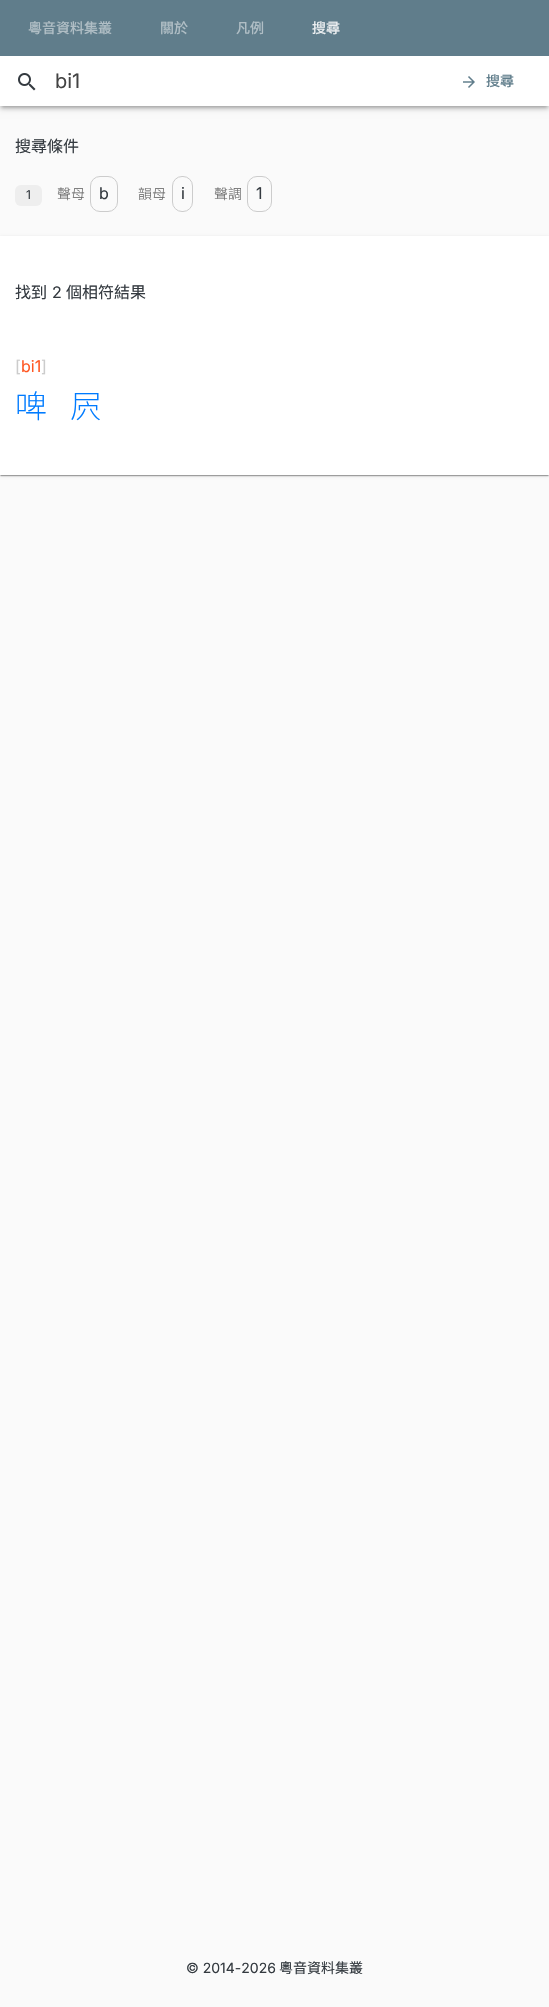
#include "include/core/SkBlurTypes.h"
#include "include/core/SkCanvas.h"
#include "include/core/SkData.h"
#include "include/core/SkFont.h"
#include "include/core/SkFontMgr.h"
#include "include/core/SkImage.h"
#include "include/core/SkMaskFilter.h"
#include "include/core/SkPaint.h"
#include "include/core/SkPathBuilder.h"
#include "include/core/SkTextBlob.h"
#include "include/effects/SkDashPathEffect.h"
#include "include/effects/SkGradientShader.h"
#include "include/utils/SkParsePath.h"

extern sk_sp<SkFontMgr> fontMgr;

static SkFont font(const char* family, int weight, float size, bool italic = false) {
    SkFontStyle style(weight, SkFontStyle::kNormal_Width,
        italic ? SkFontStyle::kItalic_Slant : SkFontStyle::kUpright_Slant);
    SkFont result(fontMgr->matchFamilyStyle(family, style), size);
    result.setSubpixel(true);
    return result;
}

static void drawLabel(SkCanvas* canvas, const char* s, float x, float y, const SkFont& font, SkColor color) {
    SkPaint ink(SkColor4f::FromColor(color));
    ink.setAntiAlias(true);
    canvas->drawString(s, x, y, font, ink);
}

static void fillRect(SkCanvas* canvas, float x, float y, float w, float h, SkColor color) {
    SkPaint ink(SkColor4f::FromColor(color));
    ink.setAntiAlias(true);
    canvas->drawRect(SkRect::MakeXYWH(x, y, w, h), ink);
}

static void fillRRect(SkCanvas* canvas, float x, float y, float w, float h, float radius, SkColor color) {
    SkPaint ink(SkColor4f::FromColor(color));
    ink.setAntiAlias(true);
    canvas->drawRoundRect(SkRect::MakeXYWH(x, y, w, h), radius, radius, ink);
}

static void drawPhoto(SkCanvas* canvas, const char* path, float x, float y, float w, float h) {
    auto image = SkImages::DeferredFromEncodedData(SkData::MakeFromFileName(path));
    canvas->drawImageRect(image, SkRect::MakeXYWH(x, y, w, h), SkSamplingOptions());
}

void draw(SkCanvas* canvas) {
    SkPaint paint;
    paint.setAntiAlias(true);
    canvas->clear(0xFFFAFAFA);
    paint.setColor(0x1F000000);
    paint.setMaskFilter(SkMaskFilter::MakeBlur(kNormal_SkBlurStyle, 4));
    canvas->drawRect(SkRect::MakeXYWH(0, 57, 549, 50), paint);
    paint.setMaskFilter(nullptr);
    paint.setColor(0x24000000);
    paint.setMaskFilter(SkMaskFilter::MakeBlur(kNormal_SkBlurStyle, 2));
    canvas->drawRect(SkRect::MakeXYWH(0, 59, 549, 50), paint);
    paint.setMaskFilter(nullptr);
    paint.setColor(0x33000000);
    paint.setMaskFilter(SkMaskFilter::MakeBlur(kNormal_SkBlurStyle, 1.5f));
    canvas->drawRect(SkRect::MakeXYWH(2, 61, 545, 46), paint);
    paint.setMaskFilter(nullptr);
    fillRect(canvas, 0, 0, 549, 56, 0xFF607D8B);
    SkFont font1 = font("Chiron Hei HK", 500, 14);
    drawLabel(canvas, "粵音資料集叢", 28, 33, font1, 0xFFB0BEC5);
    drawLabel(canvas, "關於", 160, 33, font1, 0xFFB0BEC5);
    drawLabel(canvas, "凡例", 236, 33, font1, 0xFFB0BEC5);
    drawLabel(canvas, "搜尋", 312, 33, font1, 0xFFECEFF1);
    fillRect(canvas, 0, 56, 549, 50, 0xFFFFFFFF);
    drawPhoto(canvas, "assets/img1.png", 18, 73, 18, 18);
    SkFont font2 = font("Inter", 400, 20);
    drawLabel(canvas, "bi1", 55, 88, font2, 0xFF434343);
    drawPhoto(canvas, "assets/img2.png", 463, 76, 12, 12);
    drawLabel(canvas, "搜尋", 486, 86, font1, 0xFF607D8B);
    SkFont font3 = font("Chiron Hei HK", 400, 16);
    drawLabel(canvas, "搜尋條件", 15, 152, font3, 0xFF343A40);
    fillRRect(canvas, 15, 185, 27, 21, 6, 0xFFEEEEEE);
    SkFont font4 = font("Inter", 400, 12);
    drawLabel(canvas, "1", 26, 199, font4, 0xFF343A40);
    SkFont font5 = font("Chiron Hei HK", 300, 14);
    drawLabel(canvas, "聲母", 57, 199, font5, 0xFF666666);
    paint.setStroke(true);
    paint.setStrokeWidth(1);
    paint.setColor(0xFFCCCCCC);
    canvas->drawRoundRect(SkRect::MakeXYWH(90.5f, 176.5f, 27, 35), 9.5f, 9.5f, paint);
    SkFont font6 = font("Inter", 400, 16);
    drawLabel(canvas, "b", 99, 199, font6, 0xFF343A40);
    drawLabel(canvas, "韻母", 138, 199, font5, 0xFF666666);
    canvas->drawRoundRect(SkRect::MakeXYWH(172.5f, 176.5f, 20, 35), 9.5f, 9.5f, paint);
    drawLabel(canvas, "i", 181, 199, font6, 0xFF343A40);
    drawLabel(canvas, "聲調", 214, 199, font5, 0xFF666666);
    canvas->drawRoundRect(SkRect::MakeXYWH(247.5f, 176.5f, 24, 35), 9.5f, 9.5f, paint);
    drawLabel(canvas, "1", 256, 199, font6, 0xFF343A40);
    paint.setStroke(false);
    paint.setColor(0x1F000000);
    paint.setMaskFilter(SkMaskFilter::MakeBlur(kNormal_SkBlurStyle, 1.5f));
    canvas->drawRect(SkRect::MakeXYWH(0, 237, 549, 239), paint);
    paint.setMaskFilter(nullptr);
    paint.setColor(0x24000000);
    paint.setMaskFilter(SkMaskFilter::MakeBlur(kNormal_SkBlurStyle, 0.5f));
    canvas->drawRect(SkRect::MakeXYWH(0, 237, 549, 239), paint);
    paint.setMaskFilter(nullptr);
    paint.setColor(0x33000000);
    paint.setMaskFilter(SkMaskFilter::MakeBlur(kNormal_SkBlurStyle, 0.5f));
    canvas->drawRect(SkRect::MakeXYWH(1, 239, 547, 237), paint);
    paint.setMaskFilter(nullptr);
    fillRect(canvas, 0, 236, 549, 239, 0xFFFFFFFF);
    drawLabel(canvas, "找到", 15, 298, font3, 0xFF343A40);
    drawLabel(canvas, "2", 52, 298, font6, 0xFF343A40);
    drawLabel(canvas, "個相符結果", 66, 298, font3, 0xFF343A40);
    drawLabel(canvas, "[", 15, 372, font6, 0xFFCCCCCC);
    drawLabel(canvas, "bi1", 21, 372, font6, 0xFFFF5722);
    drawLabel(canvas, "]", 41, 372, font6, 0xFFCCCCCC);
    SkFont font7 = font("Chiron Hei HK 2", 300, 32);
    drawLabel(canvas, "啤", 15, 418, font7, 0xFF007BFF);
    drawLabel(canvas, "屄", 70, 418, font7, 0xFF007BFF);
    SkFont font8 = font("Inter", 400, 14);
    drawLabel(canvas, "© 2014-2026", 186, 1973, font8, 0xFF343A40);
    SkFont font9 = font("Chiron Hei HK", 400, 14);
    drawLabel(canvas, "粵音資料集叢", 279, 1973, font9, 0xFF343A40);
}
